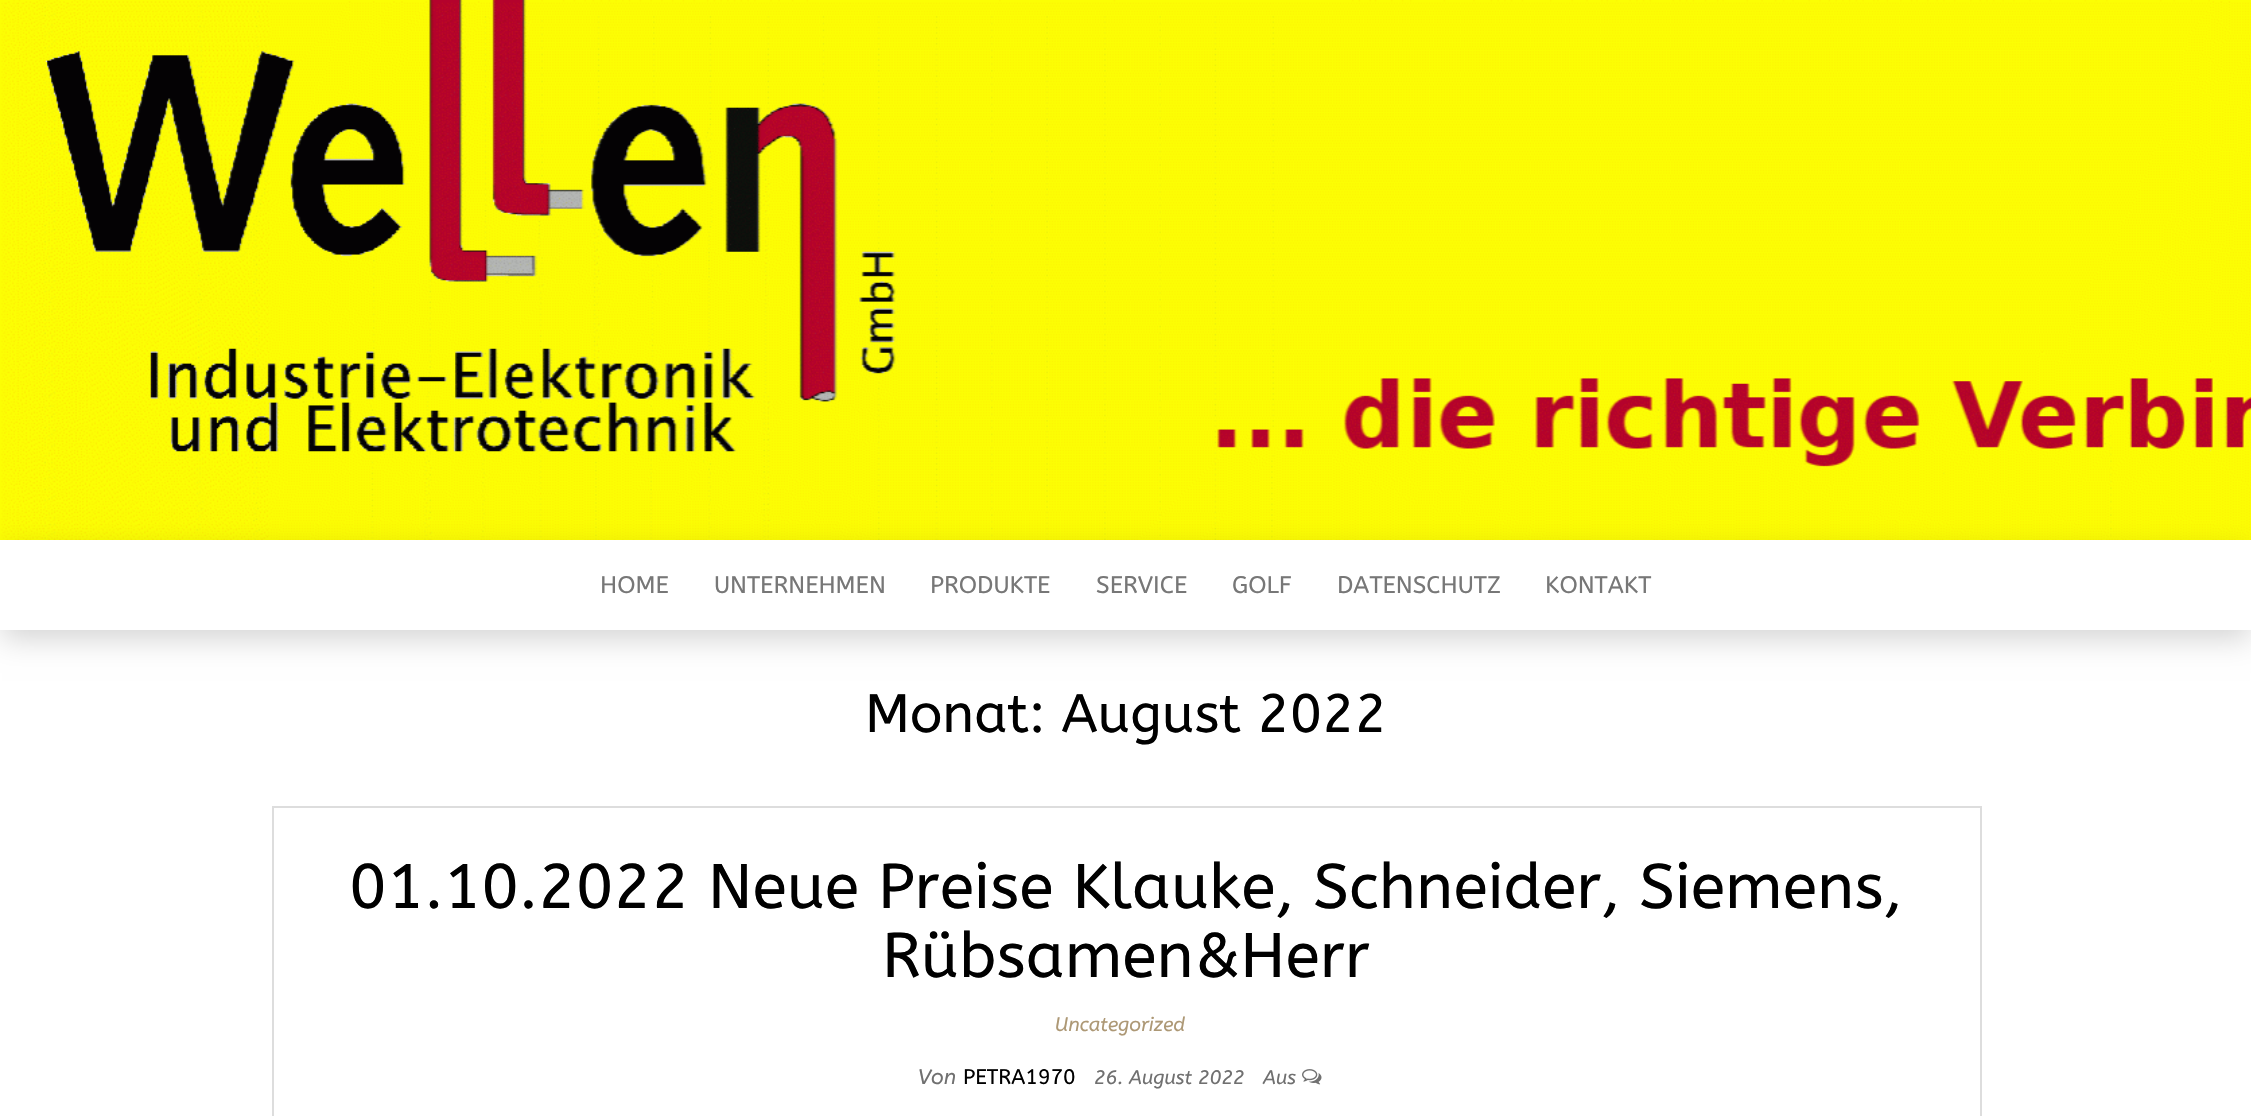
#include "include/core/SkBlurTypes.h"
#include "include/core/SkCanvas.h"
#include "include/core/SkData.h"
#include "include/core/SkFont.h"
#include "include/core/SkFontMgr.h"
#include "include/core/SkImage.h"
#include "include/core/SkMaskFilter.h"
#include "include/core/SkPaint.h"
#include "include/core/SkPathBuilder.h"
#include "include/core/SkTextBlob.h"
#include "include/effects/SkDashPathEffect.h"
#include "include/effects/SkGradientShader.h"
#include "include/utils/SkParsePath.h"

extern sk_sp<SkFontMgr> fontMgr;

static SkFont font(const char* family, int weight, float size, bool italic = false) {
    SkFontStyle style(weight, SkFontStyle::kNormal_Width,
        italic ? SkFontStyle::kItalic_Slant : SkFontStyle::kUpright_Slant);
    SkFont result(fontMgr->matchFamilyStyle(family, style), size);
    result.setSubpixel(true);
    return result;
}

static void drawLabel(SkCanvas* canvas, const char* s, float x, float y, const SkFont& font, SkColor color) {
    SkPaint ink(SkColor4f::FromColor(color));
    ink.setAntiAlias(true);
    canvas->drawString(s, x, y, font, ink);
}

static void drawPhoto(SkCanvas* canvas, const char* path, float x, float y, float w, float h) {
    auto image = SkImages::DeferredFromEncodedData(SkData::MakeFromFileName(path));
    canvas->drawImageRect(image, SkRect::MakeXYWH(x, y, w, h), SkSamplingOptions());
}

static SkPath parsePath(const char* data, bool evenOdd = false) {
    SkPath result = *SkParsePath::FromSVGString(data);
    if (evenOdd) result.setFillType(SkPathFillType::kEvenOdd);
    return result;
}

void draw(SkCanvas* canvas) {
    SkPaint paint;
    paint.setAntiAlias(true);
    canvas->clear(0xFFFFFFFF);
    drawPhoto(canvas, "assets/img1.png", 0, 0, 2251, 540);
    canvas->save();
    canvas->clipPath(parsePath("M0 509H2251V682H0ZM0 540H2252V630H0Z", true), true);
    paint.setColor(0x2B000000);
    paint.setMaskFilter(SkMaskFilter::MakeBlur(kNormal_SkBlurStyle, 14));
    canvas->drawRect(SkRect::MakeXYWH(2, 552, 2248, 87), paint);
    paint.setMaskFilter(nullptr);
    canvas->restore();
    SkFont font1 = font("ABeeZee", 400, 24);
    drawLabel(canvas, "HOME", 600, 593, font1, 0xFF777777);
    drawLabel(canvas, "UNTERNEHMEN", 714, 593, font1, 0xFF777777);
    drawLabel(canvas, "PRODUKTE", 930, 593, font1, 0xFF777777);
    drawLabel(canvas, "SERVICE", 1096, 593, font1, 0xFF777777);
    drawLabel(canvas, "GOLF", 1232, 593, font1, 0xFF777777);
    drawLabel(canvas, "DATENSCHUTZ", 1337, 593, font1, 0xFF777777);
    drawLabel(canvas, "KONTAKT", 1545, 593, font1, 0xFF777777);
    SkFont font2 = font("ABeeZee", 400, 54);
    drawLabel(canvas, "Monat: August 2022", 865, 732, font2, 0xFF000000);
    paint.setStroke(true);
    paint.setStrokeWidth(2);
    paint.setColor(0xFFDDDDDD);
    canvas->drawRect(SkRect::MakeXYWH(273, 807, 1708, 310), paint);
    SkFont font3 = font("ABeeZee", 400, 63);
    drawLabel(canvas, "01.10.2022 Neue Preise Klauke, Schneider, Siemens,", 349, 908, font3, 0xFF000000);
    drawLabel(canvas, "Rübsamen&Herr", 882, 977, font3, 0xFF000000);
    SkFont font4 = font("ABeeZee", 400, 19.5f, true);
    drawLabel(canvas, "Uncategorized", 1055, 1031, font4, 0xFFAD9875);
    SkFont font5 = font("ABeeZee", 400, 21, true);
    drawLabel(canvas, "Von", 918, 1084, font5, 0xFF707070);
    SkFont font6 = font("ABeeZee", 400, 21);
    drawLabel(canvas, "PETRA1970", 963, 1084, font6, 0xFF000000);
    drawLabel(canvas, "26. August 2022", 1094, 1084, font4, 0xFF707070);
    drawLabel(canvas, "Aus", 1263, 1084, font4, 0xFF707070);
    drawPhoto(canvas, "assets/img2.png", 1302, 1069, 20, 16);
}
